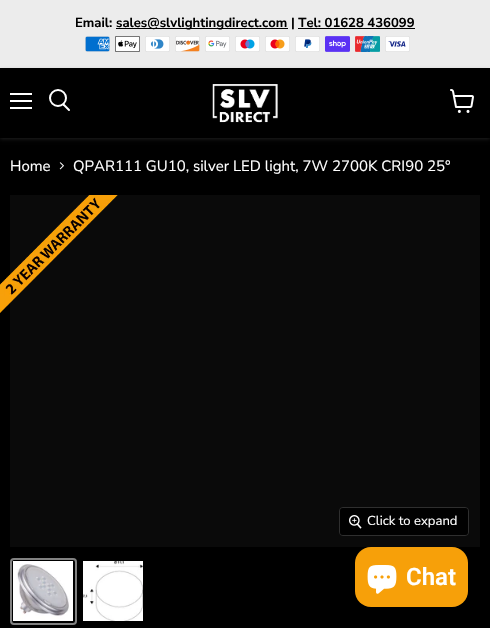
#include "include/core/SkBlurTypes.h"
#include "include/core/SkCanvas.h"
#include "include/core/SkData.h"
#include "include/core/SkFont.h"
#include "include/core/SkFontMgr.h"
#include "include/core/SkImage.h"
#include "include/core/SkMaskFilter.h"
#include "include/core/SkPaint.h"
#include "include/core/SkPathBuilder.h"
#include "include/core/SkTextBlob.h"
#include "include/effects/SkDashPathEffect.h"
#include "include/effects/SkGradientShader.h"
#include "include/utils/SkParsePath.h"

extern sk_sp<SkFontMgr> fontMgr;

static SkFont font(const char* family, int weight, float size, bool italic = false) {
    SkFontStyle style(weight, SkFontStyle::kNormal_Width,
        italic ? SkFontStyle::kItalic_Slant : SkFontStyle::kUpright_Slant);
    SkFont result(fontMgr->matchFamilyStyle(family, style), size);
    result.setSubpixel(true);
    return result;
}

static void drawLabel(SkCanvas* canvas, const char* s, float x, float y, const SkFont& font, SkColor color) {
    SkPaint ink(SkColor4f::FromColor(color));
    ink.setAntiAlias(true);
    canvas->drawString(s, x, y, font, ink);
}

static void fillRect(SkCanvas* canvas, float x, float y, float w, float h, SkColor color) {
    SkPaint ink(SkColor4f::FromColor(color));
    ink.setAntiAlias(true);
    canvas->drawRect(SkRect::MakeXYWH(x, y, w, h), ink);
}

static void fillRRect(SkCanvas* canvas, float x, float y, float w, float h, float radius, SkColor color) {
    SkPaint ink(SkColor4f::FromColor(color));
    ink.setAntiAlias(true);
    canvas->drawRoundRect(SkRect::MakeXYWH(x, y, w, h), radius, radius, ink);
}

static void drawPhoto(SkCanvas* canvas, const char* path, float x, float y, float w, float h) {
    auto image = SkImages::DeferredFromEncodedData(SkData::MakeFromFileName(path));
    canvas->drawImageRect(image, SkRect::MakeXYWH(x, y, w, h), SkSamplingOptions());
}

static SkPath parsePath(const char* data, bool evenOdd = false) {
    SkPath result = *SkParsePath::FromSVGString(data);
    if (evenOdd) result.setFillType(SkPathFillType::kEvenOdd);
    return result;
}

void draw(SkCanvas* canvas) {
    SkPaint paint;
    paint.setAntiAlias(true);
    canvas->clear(0xFF000000);
    fillRect(canvas, 0, 0, 490, 68, 0xFFECECEC);
    SkFont font1 = font("Nunito Sans", 700, 13.1f);
    drawLabel(canvas, "Email:", 75, 27, font1, 0xFF000000);
    fillRect(canvas, 116, 28, 172, 1, 0xFF000000);
    drawLabel(canvas, "sales@slvlightingdirect.com", 116, 27, font1, 0xFF000000);
    drawLabel(canvas, "| Tel: 01628 436099", 291, 27, font1, 0xFF000000);
    fillRect(canvas, 298, 28, 117, 1, 0xFF000000);
    drawPhoto(canvas, "assets/img1.png", 85, 36, 25, 16);
    drawPhoto(canvas, "assets/img2.png", 115, 36, 25, 16);
    drawPhoto(canvas, "assets/img3.png", 145, 36, 25, 16);
    drawPhoto(canvas, "assets/img4.png", 175, 36, 25, 16);
    drawPhoto(canvas, "assets/img5.png", 205, 36, 25, 16);
    drawPhoto(canvas, "assets/img6.png", 235, 36, 25, 16);
    drawPhoto(canvas, "assets/img7.png", 265, 36, 25, 16);
    drawPhoto(canvas, "assets/img8.png", 295, 36, 25, 16);
    drawPhoto(canvas, "assets/img9.png", 325, 36, 25, 16);
    drawPhoto(canvas, "assets/img10.png", 355, 36, 25, 16);
    drawPhoto(canvas, "assets/img11.png", 385, 36, 25, 16);
    paint.setColor(0x40808080);
    paint.setMaskFilter(SkMaskFilter::MakeBlur(kNormal_SkBlurStyle, 2));
    canvas->drawRect(SkRect::MakeXYWH(0, 69, 490, 70), paint);
    paint.setMaskFilter(nullptr);
    fillRect(canvas, 0, 68, 490, 70, 0xFF000000);
    fillRect(canvas, 10, 93, 22, 2, 0xFFFFFFFF);
    fillRect(canvas, 10, 100, 22, 2, 0xFFFFFFFF);
    fillRect(canvas, 10, 107, 22, 2, 0xFFFFFFFF);
    paint.setStroke(true);
    paint.setStrokeWidth(2);
    paint.setStrokeCap(SkPaint::kRound_Cap);
    paint.setColor(0xFFFFFFFF);
    canvas->drawPath(parsePath("M69 110L63.5 104.5"), paint);
    paint.setStrokeCap(SkPaint::kButt_Cap);
    canvas->drawCircle(58, 98, 8, paint);
    drawPhoto(canvas, "assets/img12.png", 212, 84, 66, 39);
    drawPhoto(canvas, "assets/img13.png", 450, 89, 24, 24);
    SkFont font2 = font("Nunito Sans", 400, 15);
    drawLabel(canvas, "Home", 10, 171, font2, 0xFFFFFFFF);
    drawPhoto(canvas, "assets/img14.png", 59, 162, 5, 8);
    drawLabel(canvas, "QPAR111 GU10, silver LED light, 7W 2700K CRI90 25°", 73, 171, font2, 0xFFFFFFFF);
    fillRect(canvas, 10, 195, 470, 352, 0xFF0A0A0A);
    drawPhoto(canvas, "assets/img15.png", 0, 195, 118, 118);
    paint.setStrokeWidth(1);
    paint.setColor(0xFF2F2F2F);
    canvas->drawRoundRect(SkRect::MakeXYWH(339.5f, 507.5f, 129, 28), 3.5f, 3.5f, paint);
    fillRRect(canvas, 340, 508, 128, 27, 3, 0xE6000000);
    drawPhoto(canvas, "assets/img16.png", 349, 515, 13, 14);
    SkFont font3 = font("Nunito Sans", 400, 13.1f);
    drawLabel(canvas, "Click to expand", 367, 525, font3, 0xFFFFFFFF);
    paint.setStrokeWidth(2);
    paint.setColor(0xFF818181);
    canvas->drawRoundRect(SkRect::MakeXYWH(11, 559, 65, 65), 3, 3, paint);
    drawPhoto(canvas, "assets/img17.png", 13, 561, 60, 60);
    drawPhoto(canvas, "assets/img18.png", 83, 561, 60, 60);
    fillRRect(canvas, 355, 547, 113, 60, 16, 0xFFF7A009);
    drawPhoto(canvas, "assets/img19.png", 367, 565, 30, 29);
    SkFont font4 = font("Roboto", 600, 24);
    drawLabel(canvas, "Chat", 406, 585, font4, 0xFFFFFFFF);
}
